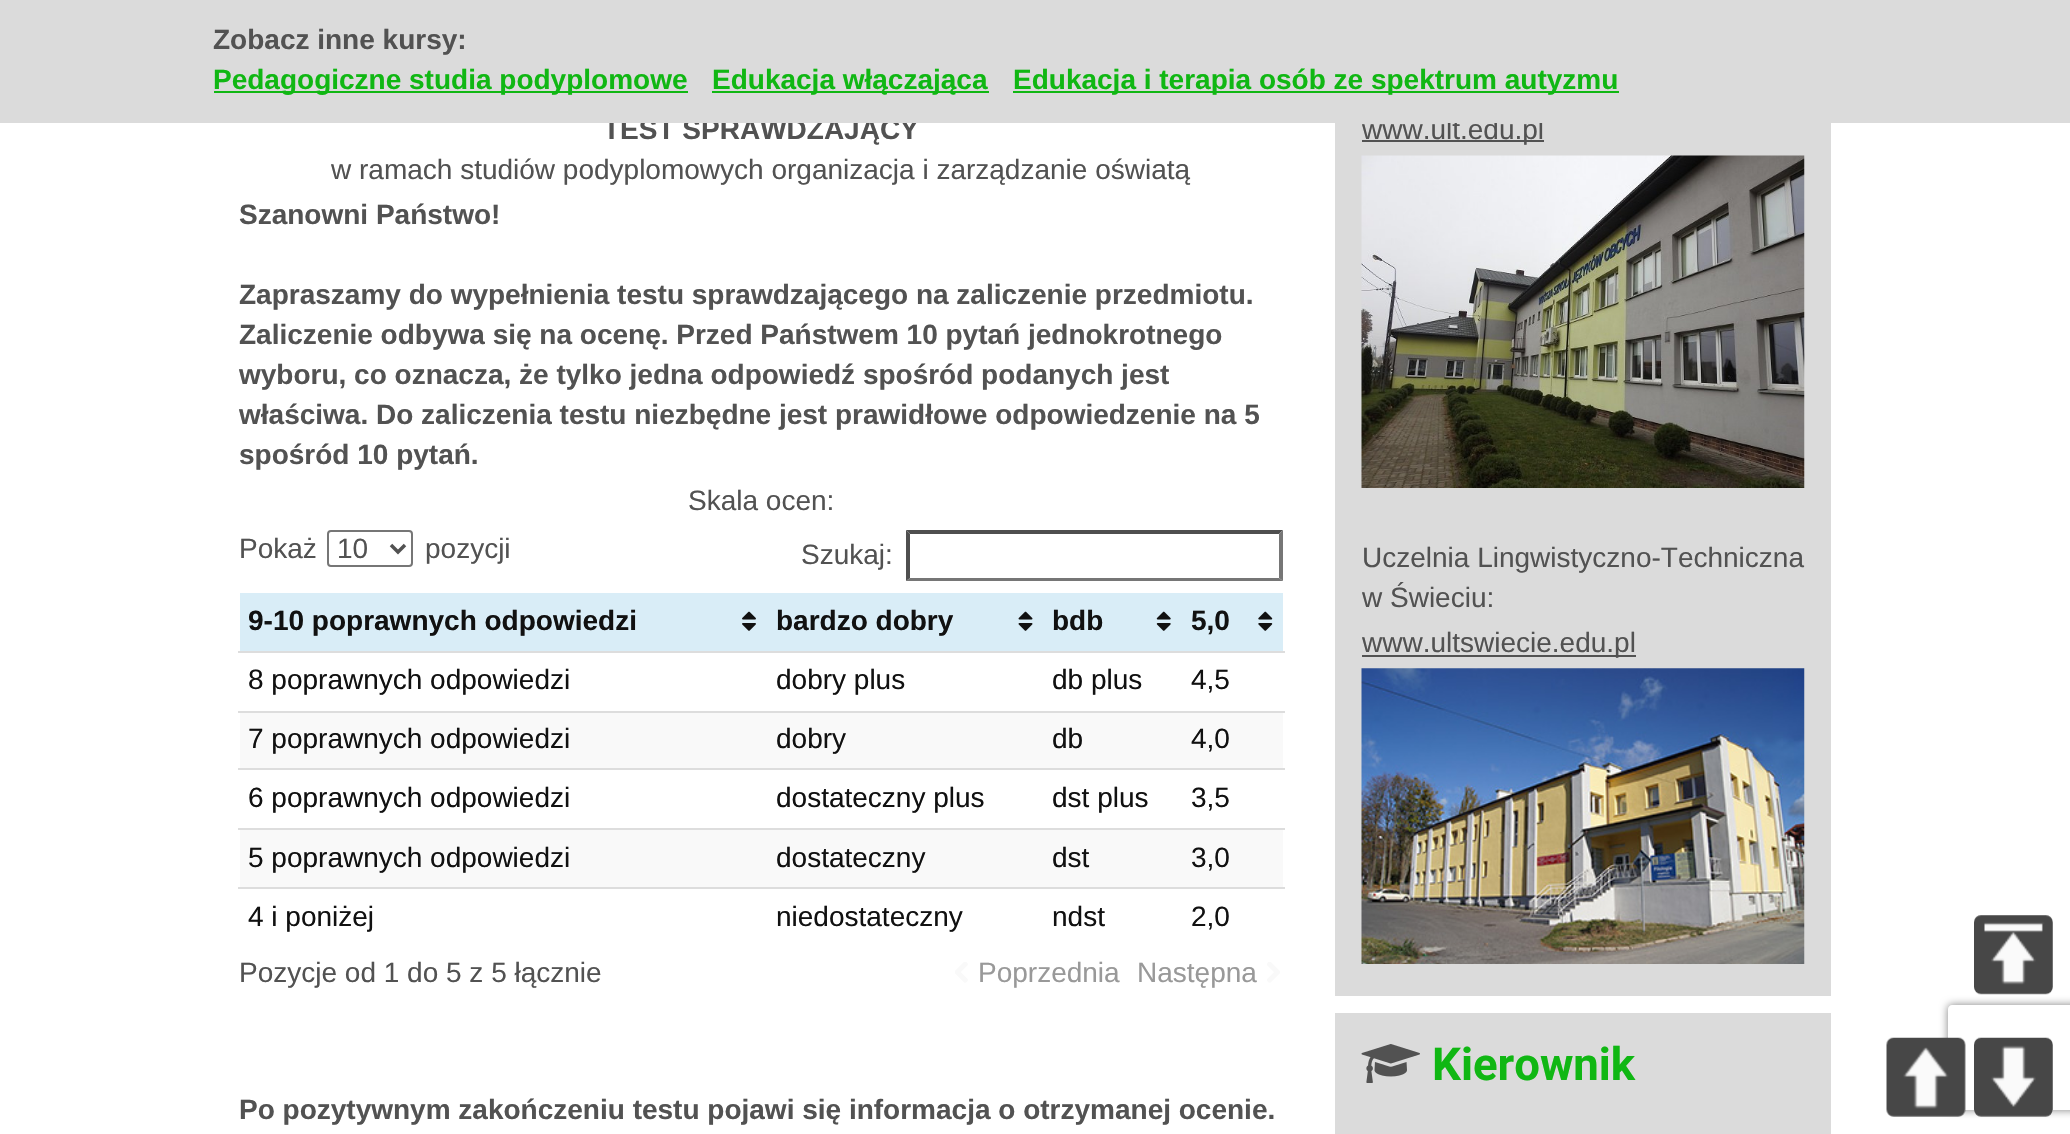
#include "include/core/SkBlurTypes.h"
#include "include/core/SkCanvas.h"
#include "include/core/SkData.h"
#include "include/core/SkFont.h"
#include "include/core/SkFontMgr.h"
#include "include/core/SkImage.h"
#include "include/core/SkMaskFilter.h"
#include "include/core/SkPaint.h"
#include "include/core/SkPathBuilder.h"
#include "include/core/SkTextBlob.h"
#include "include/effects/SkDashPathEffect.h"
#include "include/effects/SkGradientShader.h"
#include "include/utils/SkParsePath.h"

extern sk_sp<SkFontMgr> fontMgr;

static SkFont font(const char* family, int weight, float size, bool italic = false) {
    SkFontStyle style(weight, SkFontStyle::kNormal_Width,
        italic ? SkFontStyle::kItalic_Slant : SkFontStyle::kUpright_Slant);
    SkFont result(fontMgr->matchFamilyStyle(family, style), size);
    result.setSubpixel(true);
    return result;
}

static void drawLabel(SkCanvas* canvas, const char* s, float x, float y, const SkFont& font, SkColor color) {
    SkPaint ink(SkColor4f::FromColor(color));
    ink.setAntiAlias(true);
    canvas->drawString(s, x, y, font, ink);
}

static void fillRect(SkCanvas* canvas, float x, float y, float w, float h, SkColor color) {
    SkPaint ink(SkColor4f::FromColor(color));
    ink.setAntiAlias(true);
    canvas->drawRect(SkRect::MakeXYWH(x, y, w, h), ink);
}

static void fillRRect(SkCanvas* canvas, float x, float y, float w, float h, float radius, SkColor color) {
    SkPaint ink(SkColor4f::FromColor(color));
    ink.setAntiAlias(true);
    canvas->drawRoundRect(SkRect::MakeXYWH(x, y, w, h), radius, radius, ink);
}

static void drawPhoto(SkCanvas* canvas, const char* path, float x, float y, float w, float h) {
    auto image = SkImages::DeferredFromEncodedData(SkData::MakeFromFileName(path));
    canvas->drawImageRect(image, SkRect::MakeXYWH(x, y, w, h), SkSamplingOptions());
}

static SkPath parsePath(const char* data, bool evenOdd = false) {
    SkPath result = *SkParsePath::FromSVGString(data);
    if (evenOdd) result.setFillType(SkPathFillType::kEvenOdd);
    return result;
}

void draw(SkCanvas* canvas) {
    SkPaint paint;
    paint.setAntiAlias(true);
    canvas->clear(0xFFFFFFFF);
    SkFont font1 = font("Liberation Sans", 700, 28);
    drawLabel(canvas, "TEST SPRAWDZAJĄCY", 603, 139, font1, 0xFF525252);
    fillRect(canvas, 1335, 123, 496, 873, 0xFFDBDBDB);
    fillRect(canvas, 1362, 140, 182, 2, 0xFF525252);
    SkFont font2 = font("Liberation Sans", 400, 28);
    drawLabel(canvas, "www.ult.edu.pl", 1362, 139, font2, 0xFF525252);
    fillRect(canvas, 0, 0, 2070, 123, 0xFFDBDBDB);
    drawLabel(canvas, "Zobacz inne kursy:", 213, 49, font1, 0xFF525252);
    fillRect(canvas, 214, 91, 474, 2, 0xFF10B713);
    drawLabel(canvas, "Pedagogiczne studia podyplomowe", 213, 89, font1, 0xFF10B713);
    fillRect(canvas, 712, 91, 277, 2, 0xFF10B713);
    drawLabel(canvas, "Edukacja włączająca", 712, 89, font1, 0xFF10B713);
    fillRect(canvas, 1013, 91, 606, 2, 0xFF10B713);
    drawLabel(canvas, "Edukacja i terapia osób ze spektrum autyzmu", 1013, 89, font1, 0xFF10B713);
    drawLabel(canvas, "w ramach studiów podyplomowych organizacja i zarządzanie oświatą", 331, 179, font2, 0xFF525252);
    drawLabel(canvas, "Szanowni Państwo!", 239, 224, font1, 0xFF525252);
    drawLabel(canvas, "Zapraszamy do wypełnienia testu sprawdzającego na zaliczenie przedmiotu.", 239, 304, font1, 0xFF525252);
    drawLabel(canvas, "Zaliczenie odbywa się na ocenę. Przed Państwem 10 pytań jednokrotnego", 239, 344, font1, 0xFF525252);
    drawLabel(canvas, "wyboru, co oznacza, że tylko jedna odpowiedź spośród podanych jest", 239, 384, font1, 0xFF525252);
    drawLabel(canvas, "właściwa. Do zaliczenia testu niezbędne jest prawidłowe odpowiedzenie na 5", 239, 424, font1, 0xFF525252);
    drawLabel(canvas, "spośród 10 pytań.", 239, 464, font1, 0xFF525252);
    drawLabel(canvas, "Skala ocen:", 688, 510, font2, 0xFF525252);
    drawLabel(canvas, "Pokaż", 239, 558, font2, 0xFF525252);
    paint.setStroke(true);
    paint.setStrokeWidth(2);
    paint.setColor(0xFF767676);
    canvas->drawRoundRect(SkRect::MakeXYWH(328, 531, 84, 35), 3, 3, paint);
    paint.setStrokeWidth(3.5f);
    paint.setColor(0xFF525252);
    canvas->drawPath(parsePath("M391 545L398 552L405 545"), paint);
    drawLabel(canvas, "10", 337, 558, font2, 0xFF525252);
    drawLabel(canvas, "pozycji", 425, 558, font2, 0xFF525252);
    paint.setStroke(false);
    paint.setColor(0xFF4F4F4F);
    canvas->drawPath(parsePath("M906 530H1283L1279 534H910Z"), paint);
    drawLabel(canvas, "Szukaj:", 801, 564, font2, 0xFF525252);
    paint.setColor(0xFF767676);
    canvas->drawPath(parsePath("M1283 530V581L1279 578V534Z"), paint);
    canvas->drawPath(parsePath("M1283 581H906L910 578H1279Z"), paint);
    paint.setColor(0xFF4F4F4F);
    canvas->drawPath(parsePath("M906 581V530L910 534V578Z"), paint);
    fillRect(canvas, 240, 593, 1043, 58, 0xFFD9EDF7);
    drawLabel(canvas, "9-10 poprawnych odpowiedzi", 248, 630, font1, 0xFF111111);
    drawPhoto(canvas, "assets/img1.png", 742, 611, 14, 20);
    drawLabel(canvas, "bardzo dobry", 776, 630, font1, 0xFF111111);
    drawPhoto(canvas, "assets/img2.png", 1018, 611, 15, 20);
    drawLabel(canvas, "bdb", 1052, 630, font1, 0xFF111111);
    drawPhoto(canvas, "assets/img3.png", 1156, 611, 15, 20);
    drawLabel(canvas, "5,0", 1191, 630, font1, 0xFF111111);
    drawPhoto(canvas, "assets/img4.png", 1258, 611, 15, 20);
    drawLabel(canvas, "8 poprawnych odpowiedzi", 248, 689, font2, 0xFF111111);
    drawLabel(canvas, "dobry plus", 776, 689, font2, 0xFF111111);
    drawLabel(canvas, "db plus", 1052, 689, font2, 0xFF111111);
    fillRect(canvas, 238, 651, 1047, 2, 0xFFDDDDDD);
    drawLabel(canvas, "4,5", 1191, 689, font2, 0xFF111111);
    fillRect(canvas, 240, 713, 1043, 55, 0xFFF9F9F9);
    drawLabel(canvas, "7 poprawnych odpowiedzi", 248, 748, font2, 0xFF111111);
    drawLabel(canvas, "dobry", 776, 748, font2, 0xFF111111);
    drawLabel(canvas, "db", 1052, 748, font2, 0xFF111111);
    fillRect(canvas, 238, 711, 1047, 2, 0xFFDDDDDD);
    drawLabel(canvas, "4,0", 1191, 748, font2, 0xFF111111);
    drawLabel(canvas, "6 poprawnych odpowiedzi", 248, 807, font2, 0xFF111111);
    drawLabel(canvas, "dostateczny plus", 776, 807, font2, 0xFF111111);
    drawLabel(canvas, "dst plus", 1052, 807, font2, 0xFF111111);
    fillRect(canvas, 238, 768, 1047, 2, 0xFFDDDDDD);
    drawLabel(canvas, "3,5", 1191, 807, font2, 0xFF111111);
    fillRect(canvas, 240, 830, 1043, 57, 0xFFF9F9F9);
    drawLabel(canvas, "5 poprawnych odpowiedzi", 248, 867, font2, 0xFF111111);
    drawLabel(canvas, "dostateczny", 776, 867, font2, 0xFF111111);
    drawLabel(canvas, "dst", 1052, 867, font2, 0xFF111111);
    fillRect(canvas, 238, 828, 1047, 2, 0xFFDDDDDD);
    drawLabel(canvas, "3,0", 1191, 867, font2, 0xFF111111);
    drawLabel(canvas, "4 i poniżej", 248, 926, font2, 0xFF111111);
    drawLabel(canvas, "niedostateczny", 776, 926, font2, 0xFF111111);
    drawLabel(canvas, "ndst", 1052, 926, font2, 0xFF111111);
    fillRect(canvas, 238, 887, 1047, 2, 0xFFDDDDDD);
    drawLabel(canvas, "2,0", 1191, 926, font2, 0xFF111111);
    drawLabel(canvas, "Pozycje od 1 do 5 z 5 łącznie", 239, 982, font2, 0xFF525252);
    drawPhoto(canvas, "assets/img5.png", 955, 962, 13, 21);
    drawLabel(canvas, "Poprzednia", 978, 982, font2, 0xFF999999);
    drawLabel(canvas, "Następna", 1137, 982, font2, 0xFF999999);
    drawPhoto(canvas, "assets/img6.png", 1267, 962, 13, 21);
    drawLabel(canvas, "Po pozytywnym zakończeniu testu pojawi się informacja o otrzymanej ocenie.", 239, 1119, font1, 0xFF525252);
    drawPhoto(canvas, "assets/img7.png", 1361, 155, 444, 333);
    drawLabel(canvas, "Uczelnia Lingwistyczno-Techniczna", 1362, 567, font2, 0xFF525252);
    drawLabel(canvas, "w Świeciu:", 1362, 607, font2, 0xFF525252);
    fillRect(canvas, 1362, 655, 274, 2, 0xFF525252);
    drawLabel(canvas, "www.ultswiecie.edu.pl", 1362, 652, font2, 0xFF525252);
    drawPhoto(canvas, "assets/img8.png", 1361, 668, 444, 296);
    fillRect(canvas, 1335, 1013, 496, 121, 0xFFDBDBDB);
    drawPhoto(canvas, "assets/img9.png", 1361, 1044, 59, 39);
    SkFont font3 = font("Roboto", 700, 45.5f);
    drawLabel(canvas, "Kierownik", 1432, 1080, font3, 0xFF10B713);
    canvas->save();
    canvas->clipPath(parsePath("M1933 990H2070V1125H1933ZM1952 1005H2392C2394 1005 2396 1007 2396 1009V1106C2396 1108 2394 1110 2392 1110H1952C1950 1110 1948 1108 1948 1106V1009C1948 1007 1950 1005 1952 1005Z", true), true);
    paint.setColor(0xFF808080);
    paint.setMaskFilter(SkMaskFilter::MakeBlur(kNormal_SkBlurStyle, 4.5f));
    canvas->drawRoundRect(SkRect::MakeXYWH(1948, 1005, 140, 105), 4, 4, paint);
    paint.setMaskFilter(nullptr);
    canvas->restore();
    fillRRect(canvas, 1974, 915, 79, 79, 7, 0xFFEFEFEF);
    drawPhoto(canvas, "assets/img10.png", 1974, 915, 79, 80);
    fillRRect(canvas, 1887, 1038, 78, 79, 7, 0xFFEFEFEF);
    drawPhoto(canvas, "assets/img11.png", 1886, 1037, 80, 80);
    fillRRect(canvas, 1974, 1038, 79, 79, 7, 0xFFEFEFEF);
    drawPhoto(canvas, "assets/img12.png", 1974, 1037, 79, 80);
}
